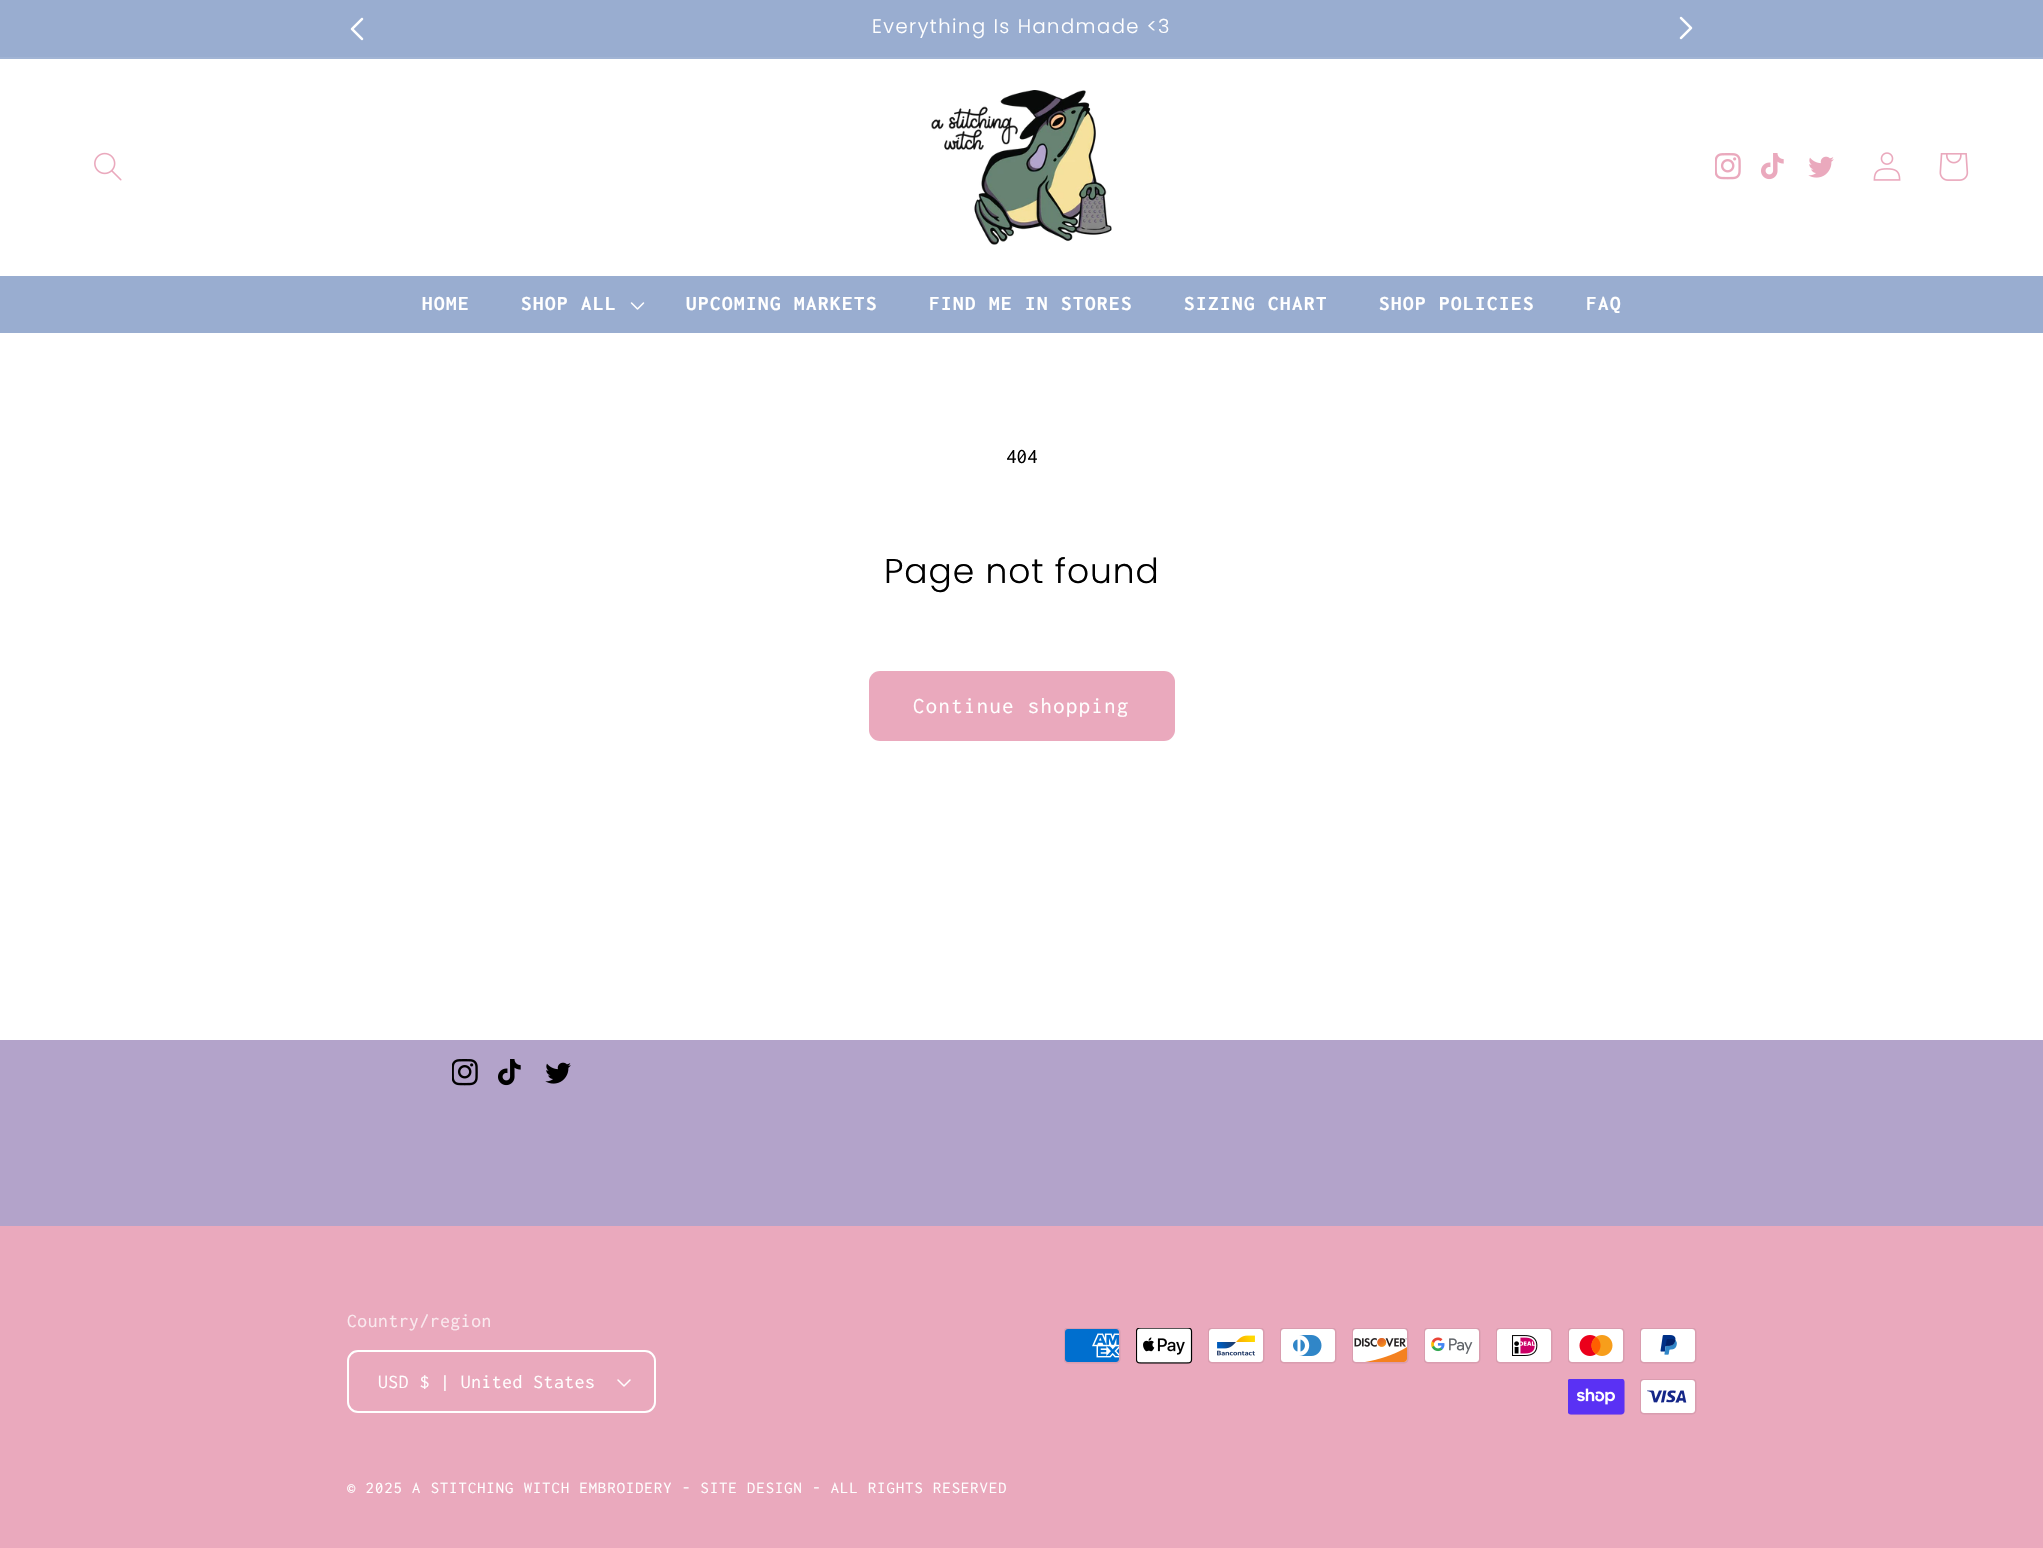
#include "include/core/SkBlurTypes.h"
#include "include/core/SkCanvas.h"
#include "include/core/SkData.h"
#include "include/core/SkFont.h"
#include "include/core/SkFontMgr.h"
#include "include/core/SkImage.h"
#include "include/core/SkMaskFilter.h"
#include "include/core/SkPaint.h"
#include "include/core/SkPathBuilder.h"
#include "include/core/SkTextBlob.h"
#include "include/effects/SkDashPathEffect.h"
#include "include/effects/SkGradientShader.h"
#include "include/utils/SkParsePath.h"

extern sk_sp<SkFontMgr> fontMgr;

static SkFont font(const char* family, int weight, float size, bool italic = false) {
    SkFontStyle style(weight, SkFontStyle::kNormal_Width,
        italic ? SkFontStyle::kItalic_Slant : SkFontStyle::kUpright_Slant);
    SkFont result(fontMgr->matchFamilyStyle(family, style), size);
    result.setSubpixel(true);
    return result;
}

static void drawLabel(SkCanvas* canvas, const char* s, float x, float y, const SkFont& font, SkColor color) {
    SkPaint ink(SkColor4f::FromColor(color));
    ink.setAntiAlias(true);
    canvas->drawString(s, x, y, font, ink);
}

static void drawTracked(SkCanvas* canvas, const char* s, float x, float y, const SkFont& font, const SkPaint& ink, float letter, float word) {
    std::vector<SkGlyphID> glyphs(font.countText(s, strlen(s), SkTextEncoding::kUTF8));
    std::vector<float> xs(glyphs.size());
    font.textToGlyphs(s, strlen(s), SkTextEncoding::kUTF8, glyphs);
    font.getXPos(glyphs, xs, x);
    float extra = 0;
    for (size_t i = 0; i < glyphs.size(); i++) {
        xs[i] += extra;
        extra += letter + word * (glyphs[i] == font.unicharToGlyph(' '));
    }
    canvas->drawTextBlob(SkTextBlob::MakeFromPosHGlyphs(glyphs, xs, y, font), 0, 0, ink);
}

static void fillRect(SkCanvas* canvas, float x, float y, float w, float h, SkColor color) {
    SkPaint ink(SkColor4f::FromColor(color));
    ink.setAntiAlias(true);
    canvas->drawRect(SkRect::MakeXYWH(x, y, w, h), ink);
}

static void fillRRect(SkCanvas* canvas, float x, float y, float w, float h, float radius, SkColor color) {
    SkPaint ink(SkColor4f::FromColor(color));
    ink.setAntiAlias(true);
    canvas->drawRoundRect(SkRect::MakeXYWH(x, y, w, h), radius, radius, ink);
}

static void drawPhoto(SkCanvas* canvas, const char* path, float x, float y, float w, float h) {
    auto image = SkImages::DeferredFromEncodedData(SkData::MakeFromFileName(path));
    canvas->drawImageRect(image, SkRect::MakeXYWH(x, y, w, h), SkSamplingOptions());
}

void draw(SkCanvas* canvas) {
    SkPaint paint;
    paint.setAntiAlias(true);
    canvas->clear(0xFFFFFFFF);
    fillRect(canvas, 0, 0, 2043, 57, 0xFF99ADD0);
    fillRect(canvas, 0, 57, 2043, 2, 0xFFA1B4D4);
    drawPhoto(canvas, "assets/img1.png", 350, 17, 14, 24);
    SkFont font1 = font("Poppins", 300, 19.5f);
    paint.setColor(0xFFFFFFFF);
    drawTracked(canvas, "Everything Is Handmade <3", 872, 33, font1, paint, 1.5f, 0);
    drawPhoto(canvas, "assets/img2.png", 1679, 16, 14, 24);
    drawPhoto(canvas, "assets/img3.png", 94, 152, 28, 29);
    drawPhoto(canvas, "assets/img4.png", 931, 90, 181, 155);
    drawPhoto(canvas, "assets/img5.png", 1715, 153, 26, 27);
    drawPhoto(canvas, "assets/img6.png", 1761, 153, 23, 27);
    drawPhoto(canvas, "assets/img7.png", 1808, 156, 26, 22);
    drawPhoto(canvas, "assets/img8.png", 1873, 152, 28, 29);
    drawPhoto(canvas, "assets/img9.png", 1939, 153, 30, 28);
    fillRect(canvas, 0, 276, 2043, 57, 0xFF99ADD0);
    SkFont font2 = font("Inconsolata", 700, 21);
    drawTracked(canvas, "HOME", 422, 310, font2, paint, 1.5f, 0);
    drawTracked(canvas, "SHOP ALL", 521, 310, font2, paint, 1.5f, 0);
    drawPhoto(canvas, "assets/img10.png", 630, 302, 15, 8);
    drawTracked(canvas, "UPCOMING MARKETS", 686, 310, font2, paint, 1.5f, 0);
    drawTracked(canvas, "FIND ME IN STORES", 929, 310, font2, paint, 1.5f, 0);
    drawTracked(canvas, "SIZING CHART", 1184, 310, font2, paint, 1.5f, 0);
    drawTracked(canvas, "SHOP POLICIES", 1379, 310, font2, paint, 1.5f, 0);
    drawTracked(canvas, "FAQ", 1586, 310, font2, paint, 1.5f, 0);
    SkFont font3 = font("Inconsolata", 400, 21);
    drawLabel(canvas, "404", 1006, 463, font3, 0xFF000000);
    SkFont font4 = font("Poppins", 300, 34.5f);
    paint.setColor(0xFF000000);
    drawTracked(canvas, "Page not found", 884, 583, font4, paint, 0.9f, 0);
    fillRRect(canvas, 869, 671, 306, 70, 11, 0xFFEAA9BD);
    SkFont font5 = font("Inconsolata", 400, 22.5f);
    paint.setColor(0xFFFFFFFF);
    drawTracked(canvas, "Continue shopping", 913, 713, font5, paint, 1.5f, 0);
    fillRect(canvas, 0, 1040, 2043, 186, 0xFFB3A3CA);
    drawPhoto(canvas, "assets/img11.png", 452, 1059, 26, 27);
    drawPhoto(canvas, "assets/img12.png", 498, 1059, 23, 27);
    drawPhoto(canvas, "assets/img13.png", 545, 1062, 26, 22);
    fillRect(canvas, 0, 1226, 2043, 322, 0xFFEAA9BD);
    SkFont font6 = font("Inconsolata", 400, 19.5f);
    paint.setColor(0xFFFAEAEF);
    drawTracked(canvas, "Country/region", 347, 1327, font6, paint, 0.6f, 0);
    drawPhoto(canvas, "assets/img14.png", 617, 1379, 14, 8);
    paint.setStroke(true);
    paint.setStrokeWidth(2);
    paint.setColor(0xFFFFFFFF);
    canvas->drawRoundRect(SkRect::MakeXYWH(348, 1351, 307, 61), 10, 10, paint);
    paint.setStroke(false);
    drawTracked(canvas, "USD $ | United States", 378, 1388, font6, paint, 0.6f, 0);
    drawPhoto(canvas, "assets/img15.png", 1064, 1328, 57, 36);
    drawPhoto(canvas, "assets/img16.png", 1136, 1328, 57, 36);
    drawPhoto(canvas, "assets/img17.png", 1208, 1328, 57, 36);
    drawPhoto(canvas, "assets/img18.png", 1280, 1328, 57, 36);
    drawPhoto(canvas, "assets/img19.png", 1352, 1328, 57, 36);
    drawPhoto(canvas, "assets/img20.png", 1424, 1328, 57, 36);
    drawPhoto(canvas, "assets/img21.png", 1496, 1328, 57, 36);
    drawPhoto(canvas, "assets/img22.png", 1568, 1328, 57, 36);
    drawPhoto(canvas, "assets/img23.png", 1640, 1328, 57, 36);
    drawPhoto(canvas, "assets/img24.png", 1568, 1379, 57, 36);
    drawPhoto(canvas, "assets/img25.png", 1640, 1379, 57, 36);
    SkFont font7 = font("Inconsolata", 400, 16.5f);
    drawTracked(canvas, "© 2025 A STITCHING WITCH EMBROIDERY", 347, 1493, font7, paint, 1.05f, 0);
    drawTracked(canvas, "- SITE DESIGN - ALL RIGHTS RESERVED", 682, 1493, font7, paint, 1.05f, 0);
}
